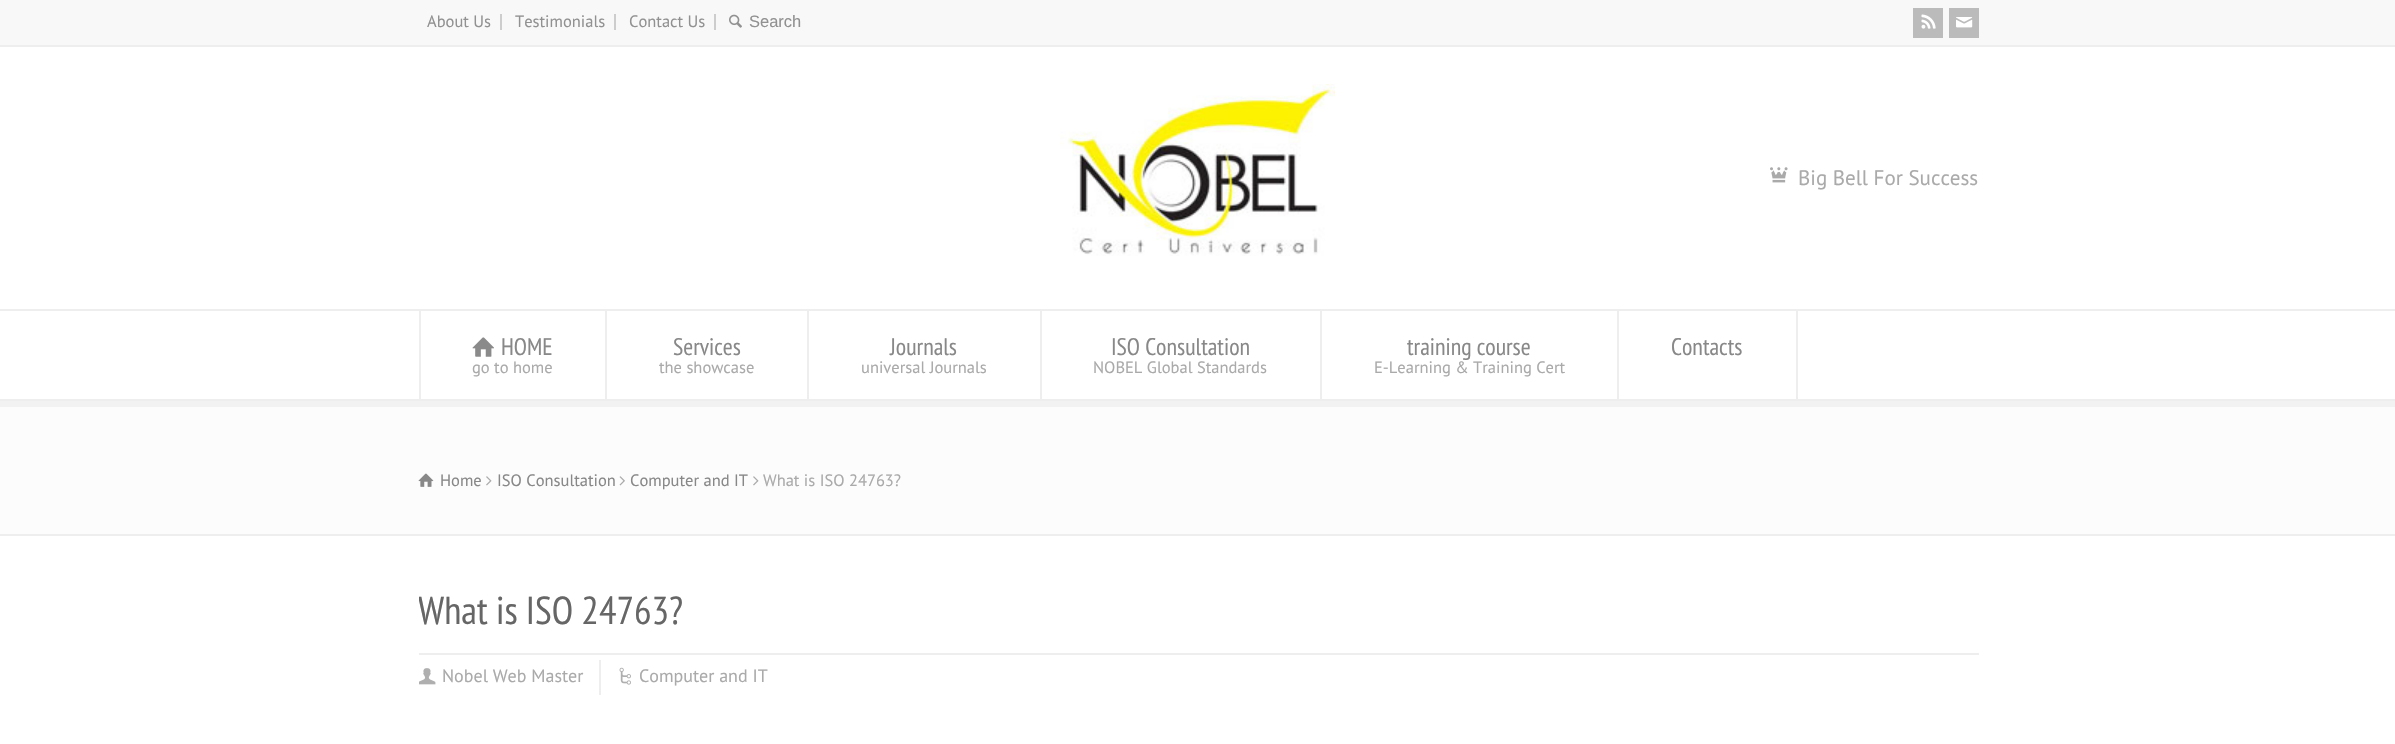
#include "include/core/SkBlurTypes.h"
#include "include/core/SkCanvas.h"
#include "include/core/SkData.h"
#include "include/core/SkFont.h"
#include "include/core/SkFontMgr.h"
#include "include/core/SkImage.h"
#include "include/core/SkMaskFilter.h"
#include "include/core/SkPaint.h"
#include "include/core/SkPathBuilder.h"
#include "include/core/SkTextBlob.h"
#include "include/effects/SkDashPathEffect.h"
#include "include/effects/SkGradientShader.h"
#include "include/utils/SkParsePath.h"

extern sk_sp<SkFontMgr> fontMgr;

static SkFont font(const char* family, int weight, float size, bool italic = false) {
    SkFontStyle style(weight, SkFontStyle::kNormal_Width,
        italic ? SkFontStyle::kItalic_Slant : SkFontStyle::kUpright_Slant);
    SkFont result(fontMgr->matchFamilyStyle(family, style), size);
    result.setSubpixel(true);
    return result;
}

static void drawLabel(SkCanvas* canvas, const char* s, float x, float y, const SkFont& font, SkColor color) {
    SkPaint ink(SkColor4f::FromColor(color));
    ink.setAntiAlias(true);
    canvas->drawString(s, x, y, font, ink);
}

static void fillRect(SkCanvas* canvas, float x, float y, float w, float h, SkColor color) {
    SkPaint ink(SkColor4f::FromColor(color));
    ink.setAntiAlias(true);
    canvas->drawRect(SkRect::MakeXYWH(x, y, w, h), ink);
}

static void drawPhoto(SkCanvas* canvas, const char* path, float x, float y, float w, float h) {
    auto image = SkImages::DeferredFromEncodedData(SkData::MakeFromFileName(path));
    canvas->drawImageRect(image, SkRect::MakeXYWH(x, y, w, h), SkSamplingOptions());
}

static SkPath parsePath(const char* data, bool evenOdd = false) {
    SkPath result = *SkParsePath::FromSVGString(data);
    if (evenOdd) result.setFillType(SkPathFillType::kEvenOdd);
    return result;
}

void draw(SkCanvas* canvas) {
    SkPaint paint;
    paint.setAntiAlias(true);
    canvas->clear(0xFFFFFFFF);
    fillRect(canvas, 0, 0, 2395, 45, 0xFFF8F8F8);
    fillRect(canvas, 0, 45, 2395, 2, 0xFFEEEEEE);
    fillRect(canvas, 500, 14, 2, 16, 0xFFCDCDCD);
    SkFont font1 = font("PT Sans", 400, 16.5f);
    drawLabel(canvas, "About Us", 427, 27, font1, 0xFF919191);
    fillRect(canvas, 614, 14, 2, 16, 0xFFCDCDCD);
    drawLabel(canvas, "Testimonials", 515, 27, font1, 0xFF919191);
    fillRect(canvas, 714, 14, 2, 16, 0xFFCDCDCD);
    drawLabel(canvas, "Contact Us", 629, 27, font1, 0xFF919191);
    drawPhoto(canvas, "assets/img1.png", 729, 14, 13, 14);
    SkFont font2 = font("Liberation Sans", 400, 16.5f);
    drawLabel(canvas, "Search", 749, 27, font2, 0xFF919191);
    fillRect(canvas, 1913, 8, 30, 30, 0xFFBBBBBB);
    drawPhoto(canvas, "assets/img2.png", 1921, 14, 15, 15);
    fillRect(canvas, 1949, 8, 30, 30, 0xFFBBBBBB);
    drawPhoto(canvas, "assets/img3.png", 1956, 17, 17, 11);
    drawPhoto(canvas, "assets/img4.png", 1060, 84, 275, 172);
    drawPhoto(canvas, "assets/img5.png", 1770, 167, 18, 16);
    SkFont font3 = font("PT Sans", 400, 21);
    drawLabel(canvas, "Big Bell For Success", 1798, 185, font3, 0xFFAAAAAA);
    paint.setColor(0xFFF2F2F2);
    canvas->drawPath(parsePath("M0 400V407H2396V315V400Z"), paint);
    fillRect(canvas, 0, 309, 2395, 2, 0xFFEEEEEE);
    fillRect(canvas, 0, 399, 2395, 2, 0xFFEEEEEE);
    fillRect(canvas, 605, 311, 2, 88, 0xFFEEEEEE);
    fillRect(canvas, 419, 311, 2, 88, 0xFFEEEEEE);
    drawPhoto(canvas, "assets/img6.png", 472, 337, 22, 20);
    SkFont font4 = font("PT Sans Narrow", 400, 24);
    drawLabel(canvas, "HOME", 501, 355, font4, 0xFF888888);
    drawLabel(canvas, "go to home", 472, 373, font1, 0xFFAAAAAA);
    fillRect(canvas, 807, 311, 2, 88, 0xFFEEEEEE);
    drawLabel(canvas, "Services", 673, 355, font4, 0xFF888888);
    drawLabel(canvas, "the showcase", 659, 373, font1, 0xFFAAAAAA);
    fillRect(canvas, 1040, 311, 2, 88, 0xFFEEEEEE);
    drawLabel(canvas, "Journals", 890, 355, font4, 0xFF888888);
    drawLabel(canvas, "universal Journals", 861, 373, font1, 0xFFAAAAAA);
    fillRect(canvas, 1320, 311, 2, 88, 0xFFEEEEEE);
    drawLabel(canvas, "ISO Consultation", 1111, 355, font4, 0xFF888888);
    drawLabel(canvas, "NOBEL Global Standards", 1093, 373, font1, 0xFFAAAAAA);
    fillRect(canvas, 1617, 311, 2, 88, 0xFFEEEEEE);
    drawLabel(canvas, "training course", 1407, 355, font4, 0xFF888888);
    drawLabel(canvas, "E-Learning & Training Cert", 1374, 373, font1, 0xFFAAAAAA);
    fillRect(canvas, 1796, 311, 2, 88, 0xFFEEEEEE);
    drawLabel(canvas, "Contacts", 1671, 355, font4, 0xFF888888);
    fillRect(canvas, 0, 407, 2395, 127, 0xFFFCFCFC);
    fillRect(canvas, 0, 534, 2395, 2, 0xFFEEEEEE);
    drawPhoto(canvas, "assets/img7.png", 418, 473, 16, 14);
    drawLabel(canvas, "Home", 440, 486, font1, 0xFF888888);
    drawPhoto(canvas, "assets/img8.png", 486, 476, 6, 10);
    drawLabel(canvas, "ISO Consultation", 497, 486, font1, 0xFF888888);
    drawPhoto(canvas, "assets/img9.png", 619, 476, 6, 10);
    drawLabel(canvas, "Computer and IT", 630, 486, font1, 0xFF888888);
    drawPhoto(canvas, "assets/img8.png", 753, 476, 6, 10);
    drawLabel(canvas, "What is ISO 24763?", 763, 486, font1, 0xFFAAAAAA);
    canvas->save();
    canvas->clipRect(SkRect::MakeXYWH(419, 566, 1560, 165));
    SkFont font5 = font("PT Sans Narrow", 400, 39);
    drawLabel(canvas, "What is ISO 24763?", 418, 624, font5, 0xFF666666);
    canvas->restore();
    fillRect(canvas, 419, 653, 1560, 2, 0xFFEEEEEE);
    fillRect(canvas, 599, 660, 2, 35, 0xFFEEEEEE);
    drawPhoto(canvas, "assets/img10.png", 419, 668, 17, 17);
    SkFont font6 = font("PT Sans", 400, 18);
    drawLabel(canvas, "Nobel Web Master", 442, 682, font6, 0xFFAAAAAA);
    drawPhoto(canvas, "assets/img11.png", 619, 667, 12, 18);
    drawLabel(canvas, "Computer and IT", 639, 682, font6, 0xFFAAAAAA);
}
